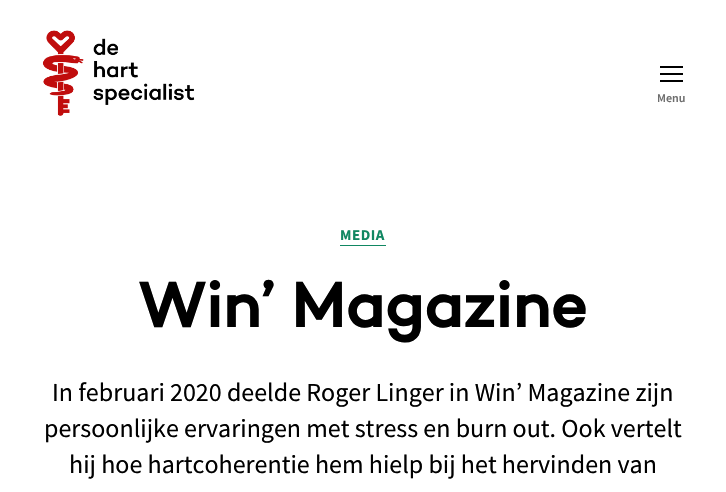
#include "include/core/SkBlurTypes.h"
#include "include/core/SkCanvas.h"
#include "include/core/SkData.h"
#include "include/core/SkFont.h"
#include "include/core/SkFontMgr.h"
#include "include/core/SkImage.h"
#include "include/core/SkMaskFilter.h"
#include "include/core/SkPaint.h"
#include "include/core/SkPathBuilder.h"
#include "include/core/SkTextBlob.h"
#include "include/effects/SkDashPathEffect.h"
#include "include/effects/SkGradientShader.h"
#include "include/utils/SkParsePath.h"

extern sk_sp<SkFontMgr> fontMgr;

static SkFont font(const char* family, int weight, float size, bool italic = false) {
    SkFontStyle style(weight, SkFontStyle::kNormal_Width,
        italic ? SkFontStyle::kItalic_Slant : SkFontStyle::kUpright_Slant);
    SkFont result(fontMgr->matchFamilyStyle(family, style), size);
    result.setSubpixel(true);
    return result;
}

static void drawLabel(SkCanvas* canvas, const char* s, float x, float y, const SkFont& font, SkColor color) {
    SkPaint ink(SkColor4f::FromColor(color));
    ink.setAntiAlias(true);
    canvas->drawString(s, x, y, font, ink);
}

static void drawTracked(SkCanvas* canvas, const char* s, float x, float y, const SkFont& font, const SkPaint& ink, float letter, float word) {
    std::vector<SkGlyphID> glyphs(font.countText(s, strlen(s), SkTextEncoding::kUTF8));
    std::vector<float> xs(glyphs.size());
    font.textToGlyphs(s, strlen(s), SkTextEncoding::kUTF8, glyphs);
    font.getXPos(glyphs, xs, x);
    float extra = 0;
    for (size_t i = 0; i < glyphs.size(); i++) {
        xs[i] += extra;
        extra += letter + word * (glyphs[i] == font.unicharToGlyph(' '));
    }
    canvas->drawTextBlob(SkTextBlob::MakeFromPosHGlyphs(glyphs, xs, y, font), 0, 0, ink);
}

static void fillRect(SkCanvas* canvas, float x, float y, float w, float h, SkColor color) {
    SkPaint ink(SkColor4f::FromColor(color));
    ink.setAntiAlias(true);
    canvas->drawRect(SkRect::MakeXYWH(x, y, w, h), ink);
}

static void drawPhoto(SkCanvas* canvas, const char* path, float x, float y, float w, float h) {
    auto image = SkImages::DeferredFromEncodedData(SkData::MakeFromFileName(path));
    canvas->drawImageRect(image, SkRect::MakeXYWH(x, y, w, h), SkSamplingOptions());
}

void draw(SkCanvas* canvas) {
    SkPaint paint;
    paint.setAntiAlias(true);
    canvas->clear(0xFFFFFFFF);
    drawPhoto(canvas, "assets/img1.png", 42, 30, 153, 86);
    fillRect(canvas, 660, 66, 23, 2, 0xFF000000);
    fillRect(canvas, 660, 80, 23, 2, 0xFF000000);
    fillRect(canvas, 660, 73, 23, 2, 0xFF000000);
    SkFont font1 = font("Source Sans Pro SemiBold", 600, 12);
    drawLabel(canvas, "Menu", 657, 102, font1, 0xFF6D6D6D);
    fillRect(canvas, 340, 245, 46, 1, 0xFF118762);
    SkFont font2 = font("Source Sans Pro", 700, 15);
    paint.setColor(0xFF118762);
    drawTracked(canvas, "MEDIA", 340, 240, font2, paint, 0.5f, 0);
    SkFont font3 = font("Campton", 700, 64);
    drawLabel(canvas, "Win’ Magazine", 138, 327, font3, 0xFF000000);
    SkFont font4 = font("Source Sans Pro", 400, 26);
    drawLabel(canvas, "In februari 2020 deelde Roger Linger in Win’ Magazine zijn", 52, 401, font4, 0xFF000000);
    drawLabel(canvas, "persoonlijke ervaringen met stress en burn out. Ook vertelt", 44, 437, font4, 0xFF000000);
    drawLabel(canvas, "hij hoe hartcoherentie hem hielp bij het hervinden van", 69, 473, font4, 0xFF000000);
}
